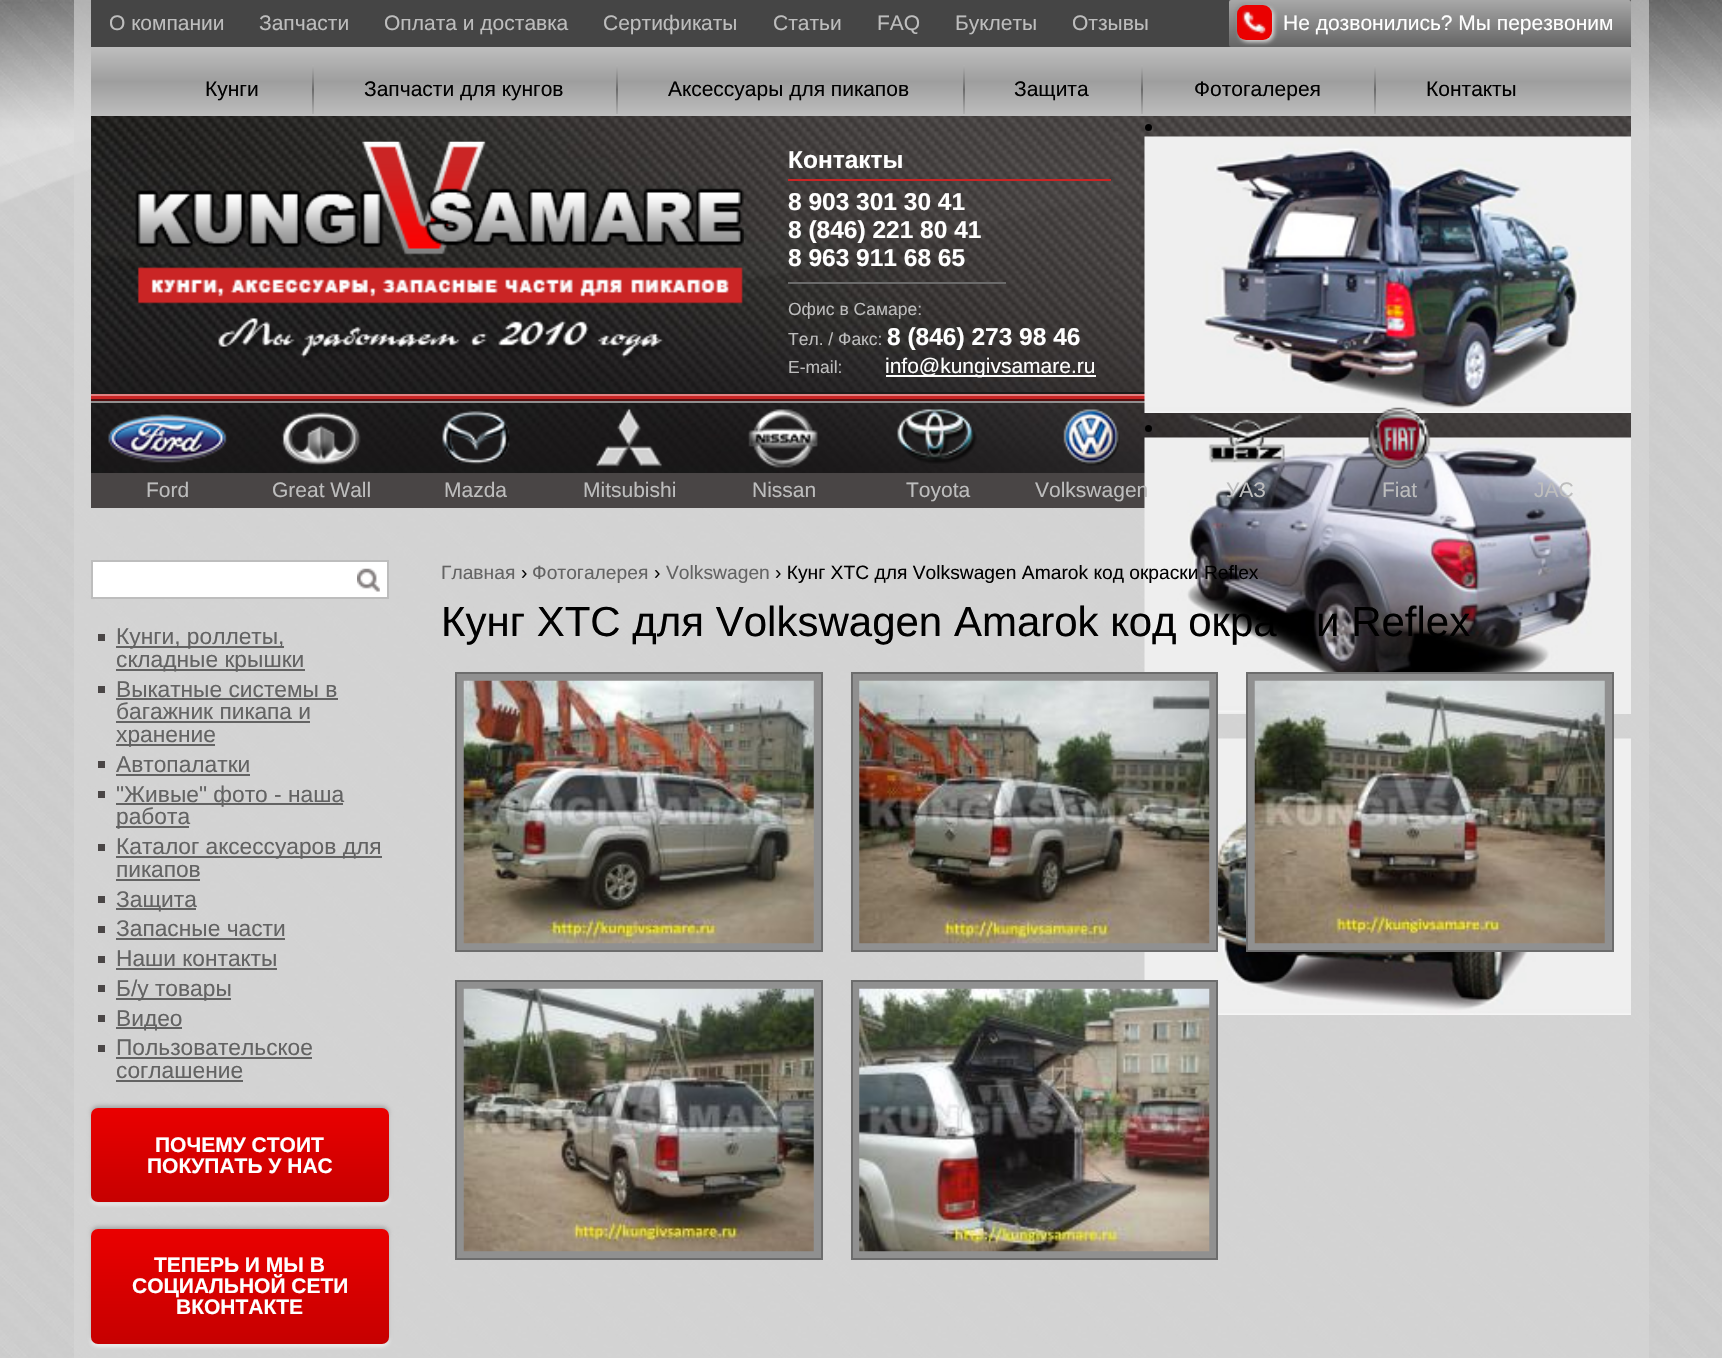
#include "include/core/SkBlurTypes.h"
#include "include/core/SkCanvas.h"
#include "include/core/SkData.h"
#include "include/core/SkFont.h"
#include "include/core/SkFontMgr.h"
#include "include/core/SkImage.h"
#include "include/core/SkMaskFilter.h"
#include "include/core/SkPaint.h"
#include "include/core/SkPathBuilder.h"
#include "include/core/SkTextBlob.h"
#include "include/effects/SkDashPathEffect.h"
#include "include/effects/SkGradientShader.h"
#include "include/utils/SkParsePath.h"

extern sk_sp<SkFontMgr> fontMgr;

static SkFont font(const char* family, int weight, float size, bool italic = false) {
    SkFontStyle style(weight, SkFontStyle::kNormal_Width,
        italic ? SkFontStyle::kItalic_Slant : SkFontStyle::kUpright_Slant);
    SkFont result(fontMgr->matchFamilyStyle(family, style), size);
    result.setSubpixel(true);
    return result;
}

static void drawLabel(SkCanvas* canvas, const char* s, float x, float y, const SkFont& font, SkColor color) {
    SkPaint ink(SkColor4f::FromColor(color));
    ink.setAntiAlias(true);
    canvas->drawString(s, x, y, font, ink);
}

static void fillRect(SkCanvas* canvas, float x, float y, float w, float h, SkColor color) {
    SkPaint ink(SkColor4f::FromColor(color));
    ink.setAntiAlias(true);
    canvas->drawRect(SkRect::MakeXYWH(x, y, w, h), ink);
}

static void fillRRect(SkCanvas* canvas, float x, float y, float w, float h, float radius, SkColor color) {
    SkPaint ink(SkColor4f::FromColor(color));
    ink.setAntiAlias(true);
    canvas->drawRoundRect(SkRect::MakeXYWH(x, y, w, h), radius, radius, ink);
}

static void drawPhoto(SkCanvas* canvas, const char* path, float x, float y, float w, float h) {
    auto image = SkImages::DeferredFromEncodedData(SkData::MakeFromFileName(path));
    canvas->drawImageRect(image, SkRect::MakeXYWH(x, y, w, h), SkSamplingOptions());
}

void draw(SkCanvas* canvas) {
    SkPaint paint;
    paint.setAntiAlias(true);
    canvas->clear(0xFFFFFFFF);
    drawPhoto(canvas, "assets/img1.png", 0, 0, 1722, 1358);
    drawPhoto(canvas, "assets/img2.png", 91, 116, 1540, 357);
    fillRect(canvas, 91, 0, 1540, 47, 0xFF454545);
    SkFont font1 = font("Liberation Sans", 400, 21);
    drawLabel(canvas, "О компании", 109, 30, font1, 0xFFBDBDBD);
    drawLabel(canvas, "Запчасти", 259, 30, font1, 0xFFBDBDBD);
    drawLabel(canvas, "Оплата и доставка", 384, 30, font1, 0xFFBDBDBD);
    drawLabel(canvas, "Сертификаты", 603, 30, font1, 0xFFBDBDBD);
    drawLabel(canvas, "Статьи", 773, 30, font1, 0xFFBDBDBD);
    drawLabel(canvas, "FAQ", 877, 30, font1, 0xFFBDBDBD);
    drawLabel(canvas, "Буклеты", 955, 30, font1, 0xFFBDBDBD);
    drawLabel(canvas, "Отзывы", 1072, 30, font1, 0xFFBDBDBD);
    {
        const SkColor colors[] = {0xFFA8A8A8, 0xFF646464};
        const float stops[] = {0, 1};
        const SkPoint ends[] = {{1430, 0}, {1430, 47}};
        paint.setShader(SkGradientShader::MakeLinear(ends, colors, stops, 2, SkTileMode::kClamp));
        paint.setAlpha(255);
    }
    canvas->drawRoundRect(SkRect::MakeXYWH(1229, 0, 402, 47), 2, 2, paint);
    paint.setShader(nullptr);
    paint.setColor(0x26000000);
    paint.setMaskFilter(SkMaskFilter::MakeBlur(kNormal_SkBlurStyle, 2));
    canvas->drawRoundRect(SkRect::MakeXYWH(1236, 4, 35, 35), 9, 9, paint);
    paint.setMaskFilter(nullptr);
    {
        const SkColor colors[] = {0xFFBEBEBE, 0xFF9E9E9E, 0xFFBEBEBE};
        const float stops[] = {0, 0.5f, 1};
        const SkPoint ends[] = {{861, 47}, {861, 116}};
        paint.setShader(SkGradientShader::MakeLinear(ends, colors, stops, 3, SkTileMode::kClamp));
        paint.setAlpha(255);
    }
    canvas->drawRect(SkRect::MakeXYWH(91, 47, 1540, 69), paint);
    paint.setShader(nullptr);
    paint.setColor(0xBFFFFFFF);
    paint.setMaskFilter(SkMaskFilter::MakeBlur(kNormal_SkBlurStyle, 2));
    canvas->drawRoundRect(SkRect::MakeXYWH(1239, 7, 35, 35), 9, 9, paint);
    paint.setMaskFilter(nullptr);
    fillRRect(canvas, 1237, 5, 35, 35, 9, 0xFFEA0000);
    drawPhoto(canvas, "assets/img3.png", 1242, 10, 24, 24);
    drawLabel(canvas, "Не дозвонились? Мы перезвоним", 1283, 30, font1, 0xFFFFFFFF);
    fillRect(canvas, 788, 179, 323, 2, 0xFFCA2525);
    SkFont font2 = font("Liberation Sans", 700, 24.5f);
    drawLabel(canvas, "Контакты", 788, 168, font2, 0xFFFFFFFF);
    fillRect(canvas, 788, 282, 218, 2, 0xFF6C6C6C);
    drawLabel(canvas, "8 903 301 30 41", 788, 210, font2, 0xFFFFFFFF);
    drawLabel(canvas, "8 (846) 221 80 41", 788, 238, font2, 0xFFFFFFFF);
    drawLabel(canvas, "8 963 911 68 65", 788, 266, font2, 0xFFFFFFFF);
    SkFont font3 = font("Liberation Sans", 400, 17.5f);
    drawLabel(canvas, "Офис в Самаре:", 788, 315, font3, 0xFFBDBDBD);
    drawLabel(canvas, "Тел. / Факс:", 788, 345, font3, 0xFFBDBDBD);
    drawLabel(canvas, "8 (846) 273 98 46", 887, 345, font2, 0xFFFFFFFF);
    drawLabel(canvas, "E-mail:", 788, 373, font3, 0xFFBDBDBD);
    fillRect(canvas, 886, 375, 210, 2, 0xFFFFFFFF);
    drawLabel(canvas, "info@kungivsamare.ru", 885, 373, font1, 0xFFFFFFFF);
    drawLabel(canvas, "Кунги", 205, 96, font1, 0xFF000000);
    {
        const SkColor colors[] = {0xFFB0B0B0, 0xFF6B6B6B, 0xFFB0B0B0};
        const float stops[] = {0, 0.5f, 1};
        const SkPoint ends[] = {{312, 65}, {312, 114}};
        paint.setShader(SkGradientShader::MakeLinear(ends, colors, stops, 3, SkTileMode::kClamp));
        paint.setAlpha(255);
    }
    canvas->drawRect(SkRect::MakeXYWH(312, 65, 2, 49), paint);
    drawLabel(canvas, "Запчасти для кунгов", 364, 96, font1, 0xFF000000);
    {
        const SkColor colors[] = {0xFFB0B0B0, 0xFF6B6B6B, 0xFFB0B0B0};
        const float stops[] = {0, 0.5f, 1};
        const SkPoint ends[] = {{617, 65}, {617, 114}};
        paint.setShader(SkGradientShader::MakeLinear(ends, colors, stops, 3, SkTileMode::kClamp));
        paint.setAlpha(255);
    }
    canvas->drawRect(SkRect::MakeXYWH(616, 65, 2, 49), paint);
    drawLabel(canvas, "Аксессуары для пикапов", 668, 96, font1, 0xFF000000);
    {
        const SkColor colors[] = {0xFFB0B0B0, 0xFF6B6B6B, 0xFFB0B0B0};
        const float stops[] = {0, 0.5f, 1};
        const SkPoint ends[] = {{963, 65}, {963, 114}};
        paint.setShader(SkGradientShader::MakeLinear(ends, colors, stops, 3, SkTileMode::kClamp));
        paint.setAlpha(255);
    }
    canvas->drawRect(SkRect::MakeXYWH(963, 65, 2, 49), paint);
    drawLabel(canvas, "Защита", 1014, 96, font1, 0xFF000000);
    {
        const SkColor colors[] = {0xFFB0B0B0, 0xFF6B6B6B, 0xFFB0B0B0};
        const float stops[] = {0, 0.5f, 1};
        const SkPoint ends[] = {{1142, 65}, {1142, 114}};
        paint.setShader(SkGradientShader::MakeLinear(ends, colors, stops, 3, SkTileMode::kClamp));
        paint.setAlpha(255);
    }
    canvas->drawRect(SkRect::MakeXYWH(1141, 65, 2, 49), paint);
    drawLabel(canvas, "Фотогалерея", 1194, 96, font1, 0xFF000000);
    {
        const SkColor colors[] = {0xFFB0B0B0, 0xFF6B6B6B, 0xFFB0B0B0};
        const float stops[] = {0, 0.5f, 1};
        const SkPoint ends[] = {{1375, 65}, {1375, 114}};
        paint.setShader(SkGradientShader::MakeLinear(ends, colors, stops, 3, SkTileMode::kClamp));
        paint.setAlpha(255);
    }
    canvas->drawRect(SkRect::MakeXYWH(1374, 65, 2, 49), paint);
    drawLabel(canvas, "Контакты", 1426, 96, font1, 0xFF000000);
    drawPhoto(canvas, "assets/img4.png", 135, 141, 609, 220);
    paint.setShader(nullptr);
    paint.setColor(0xFF000000);
    canvas->drawCircle(1148.5f, 127.5f, 3.5f, paint);
    fillRect(canvas, 91, 401, 1054, 2, 0xFF918F8F);
    fillRect(canvas, 91, 399, 1054, 2, 0xFF551010);
    fillRect(canvas, 91, 396, 1054, 3, 0xFFCA2525);
    fillRect(canvas, 91, 394, 1054, 2, 0xFFE08181);
    fillRect(canvas, 91, 392, 1054, 2, 0xFF1C1B1A);
    drawPhoto(canvas, "assets/img5.png", 1144, 136, 487, 277);
    canvas->drawCircle(1148.5f, 428.5f, 3.5f, paint);
    fillRect(canvas, 91, 473, 1054, 35, 0xFF494545);
    drawPhoto(canvas, "assets/img6.png", 1144, 437, 487, 277);
    drawPhoto(canvas, "assets/img7.png", 1144, 738, 487, 277);
    drawPhoto(canvas, "assets/img8.png", 108, 414, 119, 49);
    drawLabel(canvas, "Ford", 146, 497, font1, 0xFFBDBDBD);
    drawPhoto(canvas, "assets/img9.png", 281, 411, 80, 55);
    drawLabel(canvas, "Great Wall", 272, 497, font1, 0xFFBDBDBD);
    drawPhoto(canvas, "assets/img10.png", 442, 410, 68, 55);
    drawLabel(canvas, "Mazda", 444, 497, font1, 0xFFBDBDBD);
    drawPhoto(canvas, "assets/img11.png", 596, 408, 66, 60);
    drawLabel(canvas, "Mitsubishi", 583, 497, font1, 0xFFBDBDBD);
    drawPhoto(canvas, "assets/img12.png", 748, 409, 70, 59);
    drawLabel(canvas, "Nissan", 752, 497, font1, 0xFFBDBDBD);
    drawPhoto(canvas, "assets/img13.png", 897, 409, 80, 55);
    drawLabel(canvas, "Toyota", 906, 497, font1, 0xFFBDBDBD);
    drawPhoto(canvas, "assets/img14.png", 1063, 409, 57, 57);
    drawLabel(canvas, "Volkswagen", 1035, 497, font1, 0xFFBDBDBD);
    drawPhoto(canvas, "assets/img15.png", 1189, 414, 114, 49);
    drawLabel(canvas, "УАЗ", 1226, 497, font1, 0xFFBDBDBD);
    drawPhoto(canvas, "assets/img16.png", 1368, 407, 63, 62);
    drawLabel(canvas, "Fiat", 1382, 497, font1, 0xFFBDBDBD);
    drawLabel(canvas, "JAC", 1534, 497, font1, 0xFFBDBDBD);
    SkFont font4 = font("Liberation Sans", 400, 19.25f);
    drawLabel(canvas, "Главная", 441, 579, font4, 0xFF636363);
    drawLabel(canvas, "›", 521, 579, font4, 0xFF000000);
    drawLabel(canvas, "Фотогалерея", 532, 579, font4, 0xFF636363);
    drawLabel(canvas, "›", 654, 579, font4, 0xFF000000);
    drawLabel(canvas, "Volkswagen", 666, 579, font4, 0xFF636363);
    drawLabel(canvas, "› Кунг XTC для Volkswagen Amarok код окраски Reflex", 775, 579, font4, 0xFF000000);
    SkFont font5 = font("Liberation Sans", 400, 42);
    drawLabel(canvas, "Кунг XTC для Volkswagen Amarok код окра", 441, 636, font5, 0xFF000000);
    drawLabel(canvas, "и Reflex", 1316, 636, font5, 0xFF000000);
    paint.setColor(0xFF909090);
    canvas->drawRect(SkRect::MakeXYWH(456, 673, 366, 278), paint);
    paint.setStroke(true);
    paint.setStrokeWidth(2);
    paint.setColor(0xFF6C6C6C);
    canvas->drawRect(SkRect::MakeXYWH(456, 673, 366, 278), paint);
    drawPhoto(canvas, "assets/img17.png", 463, 680, 351, 264);
    paint.setStroke(false);
    paint.setColor(0xFF909090);
    canvas->drawRect(SkRect::MakeXYWH(852, 673, 365, 278), paint);
    paint.setStroke(true);
    paint.setColor(0xFF6C6C6C);
    canvas->drawRect(SkRect::MakeXYWH(852, 673, 365, 278), paint);
    drawPhoto(canvas, "assets/img18.png", 859, 680, 351, 264);
    paint.setStroke(false);
    paint.setColor(0xFF909090);
    canvas->drawRect(SkRect::MakeXYWH(1247, 673, 366, 278), paint);
    paint.setStroke(true);
    paint.setColor(0xFF6C6C6C);
    canvas->drawRect(SkRect::MakeXYWH(1247, 673, 366, 278), paint);
    drawPhoto(canvas, "assets/img19.png", 1254, 680, 351, 264);
    paint.setStroke(false);
    paint.setColor(0xFF909090);
    canvas->drawRect(SkRect::MakeXYWH(456, 981, 366, 278), paint);
    paint.setStroke(true);
    paint.setColor(0xFF6C6C6C);
    canvas->drawRect(SkRect::MakeXYWH(456, 981, 366, 278), paint);
    drawPhoto(canvas, "assets/img20.png", 463, 988, 351, 264);
    paint.setStroke(false);
    paint.setColor(0xFF909090);
    canvas->drawRect(SkRect::MakeXYWH(852, 981, 365, 278), paint);
    paint.setStroke(true);
    paint.setColor(0xFF6C6C6C);
    canvas->drawRect(SkRect::MakeXYWH(852, 981, 365, 278), paint);
    drawPhoto(canvas, "assets/img21.png", 859, 988, 351, 264);
    paint.setStroke(false);
    paint.setColor(0xFFFFFFFF);
    canvas->drawRect(SkRect::MakeXYWH(92, 561, 296, 37), paint);
    paint.setStroke(true);
    paint.setColor(0xFFBDBDBD);
    canvas->drawRect(SkRect::MakeXYWH(92, 561, 296, 37), paint);
    drawPhoto(canvas, "assets/img22.png", 357, 568, 23, 24);
    fillRect(canvas, 98, 634, 7, 7, 0xFF4A4646);
    fillRect(canvas, 116, 646, 168, 2, 0xFF636363);
    SkFont font6 = font("Liberation Sans", 400, 22.75f);
    drawLabel(canvas, "Кунги, роллеты,", 116, 644, font6, 0xFF636363);
    fillRect(canvas, 116, 669, 189, 2, 0xFF636363);
    drawLabel(canvas, "складные крышки", 116, 667, font6, 0xFF636363);
    fillRect(canvas, 98, 686, 7, 7, 0xFF4A4646);
    drawLabel(canvas, "Выкатные системы в", 116, 697, font6, 0xFF636363);
    fillRect(canvas, 116, 698, 222, 2, 0xFF636363);
    drawLabel(canvas, "багажник пикапа и", 116, 719, font6, 0xFF636363);
    fillRect(canvas, 116, 721, 194, 2, 0xFF636363);
    fillRect(canvas, 116, 744, 99, 2, 0xFF636363);
    drawLabel(canvas, "хранение", 116, 742, font6, 0xFF636363);
    fillRect(canvas, 98, 761, 7, 7, 0xFF4A4646);
    drawLabel(canvas, "Автопалатки", 116, 772, font6, 0xFF636363);
    fillRect(canvas, 116, 774, 134, 2, 0xFF636363);
    fillRect(canvas, 98, 791, 7, 7, 0xFF4A4646);
    fillRect(canvas, 116, 803, 227, 2, 0xFF636363);
    drawLabel(canvas, "\"Живые\" фото - наша", 116, 802, font6, 0xFF636363);
    fillRect(canvas, 116, 826, 73, 2, 0xFF636363);
    drawLabel(canvas, "работа", 116, 824, font6, 0xFF636363);
    fillRect(canvas, 98, 844, 7, 7, 0xFF4A4646);
    fillRect(canvas, 116, 856, 266, 2, 0xFF636363);
    drawLabel(canvas, "Каталог аксессуаров для", 116, 854, font6, 0xFF636363);
    drawLabel(canvas, "пикапов", 116, 877, font6, 0xFF636363);
    fillRect(canvas, 116, 879, 84, 2, 0xFF636363);
    fillRect(canvas, 98, 896, 7, 7, 0xFF4A4646);
    fillRect(canvas, 116, 908, 80, 2, 0xFF636363);
    drawLabel(canvas, "Защита", 116, 907, font6, 0xFF636363);
    fillRect(canvas, 98, 926, 7, 7, 0xFF4A4646);
    drawLabel(canvas, "Запасные части", 116, 936, font6, 0xFF636363);
    fillRect(canvas, 116, 938, 169, 2, 0xFF636363);
    fillRect(canvas, 98, 956, 7, 7, 0xFF4A4646);
    drawLabel(canvas, "Наши контакты", 116, 966, font6, 0xFF636363);
    fillRect(canvas, 116, 968, 161, 2, 0xFF636363);
    fillRect(canvas, 98, 985, 7, 7, 0xFF4A4646);
    fillRect(canvas, 116, 998, 115, 2, 0xFF636363);
    drawLabel(canvas, "Б/у товары", 116, 996, font6, 0xFF636363);
    fillRect(canvas, 98, 1015, 7, 7, 0xFF4A4646);
    fillRect(canvas, 116, 1027, 66, 2, 0xFF636363);
    drawLabel(canvas, "Видео", 116, 1026, font6, 0xFF636363);
    fillRect(canvas, 98, 1045, 7, 7, 0xFF4A4646);
    drawLabel(canvas, "Пользовательское", 116, 1055, font6, 0xFF636363);
    fillRect(canvas, 116, 1057, 196, 2, 0xFF636363);
    drawLabel(canvas, "соглашение", 116, 1078, font6, 0xFF636363);
    fillRect(canvas, 116, 1080, 127, 2, 0xFF636363);
    paint.setStroke(false);
    paint.setColor(0xFFFFFFFF);
    paint.setMaskFilter(SkMaskFilter::MakeBlur(kNormal_SkBlurStyle, 2));
    canvas->drawRoundRect(SkRect::MakeXYWH(91, 1110, 298, 94), 7, 7, paint);
    paint.setMaskFilter(nullptr);
    paint.setColor(0xFF9F9F9F);
    paint.setMaskFilter(SkMaskFilter::MakeBlur(kNormal_SkBlurStyle, 2));
    canvas->drawRoundRect(SkRect::MakeXYWH(91, 1106, 298, 95), 7, 7, paint);
    paint.setMaskFilter(nullptr);
    {
        const SkColor colors[] = {0xFFEA0000, 0xFFC60000};
        const float stops[] = {0, 1};
        const SkPoint ends[] = {{240, 1108}, {240, 1202}};
        paint.setShader(SkGradientShader::MakeLinear(ends, colors, stops, 2, SkTileMode::kClamp));
        paint.setAlpha(255);
    }
    canvas->drawRoundRect(SkRect::MakeXYWH(91, 1108, 298, 94), 7, 7, paint);
    SkFont font7 = font("Liberation Sans", 700, 21);
    drawLabel(canvas, "ПОЧЕМУ СТОИТ", 155, 1152, font7, 0xFFFFFFFF);
    drawLabel(canvas, "ПОКУПАТЬ У НАС", 147, 1173, font7, 0xFFFFFFFF);
    paint.setShader(nullptr);
    paint.setColor(0xFFFFFFFF);
    paint.setMaskFilter(SkMaskFilter::MakeBlur(kNormal_SkBlurStyle, 2));
    canvas->drawRoundRect(SkRect::MakeXYWH(91, 1230, 298, 116), 7, 7, paint);
    paint.setMaskFilter(nullptr);
    paint.setColor(0xFF9F9F9F);
    paint.setMaskFilter(SkMaskFilter::MakeBlur(kNormal_SkBlurStyle, 2));
    canvas->drawRoundRect(SkRect::MakeXYWH(91, 1227, 298, 115), 7, 7, paint);
    paint.setMaskFilter(nullptr);
    {
        const SkColor colors[] = {0xFFEA0000, 0xFFC60000};
        const float stops[] = {0, 1};
        const SkPoint ends[] = {{240, 1229}, {240, 1344}};
        paint.setShader(SkGradientShader::MakeLinear(ends, colors, stops, 2, SkTileMode::kClamp));
        paint.setAlpha(255);
    }
    canvas->drawRoundRect(SkRect::MakeXYWH(91, 1229, 298, 115), 7, 7, paint);
    drawLabel(canvas, "ТЕПЕРЬ И МЫ В", 154, 1272, font7, 0xFFFFFFFF);
    drawLabel(canvas, "СОЦИАЛЬНОЙ СЕТИ", 132, 1293, font7, 0xFFFFFFFF);
    drawLabel(canvas, "ВКОНТАКТЕ", 176, 1314, font7, 0xFFFFFFFF);
}
